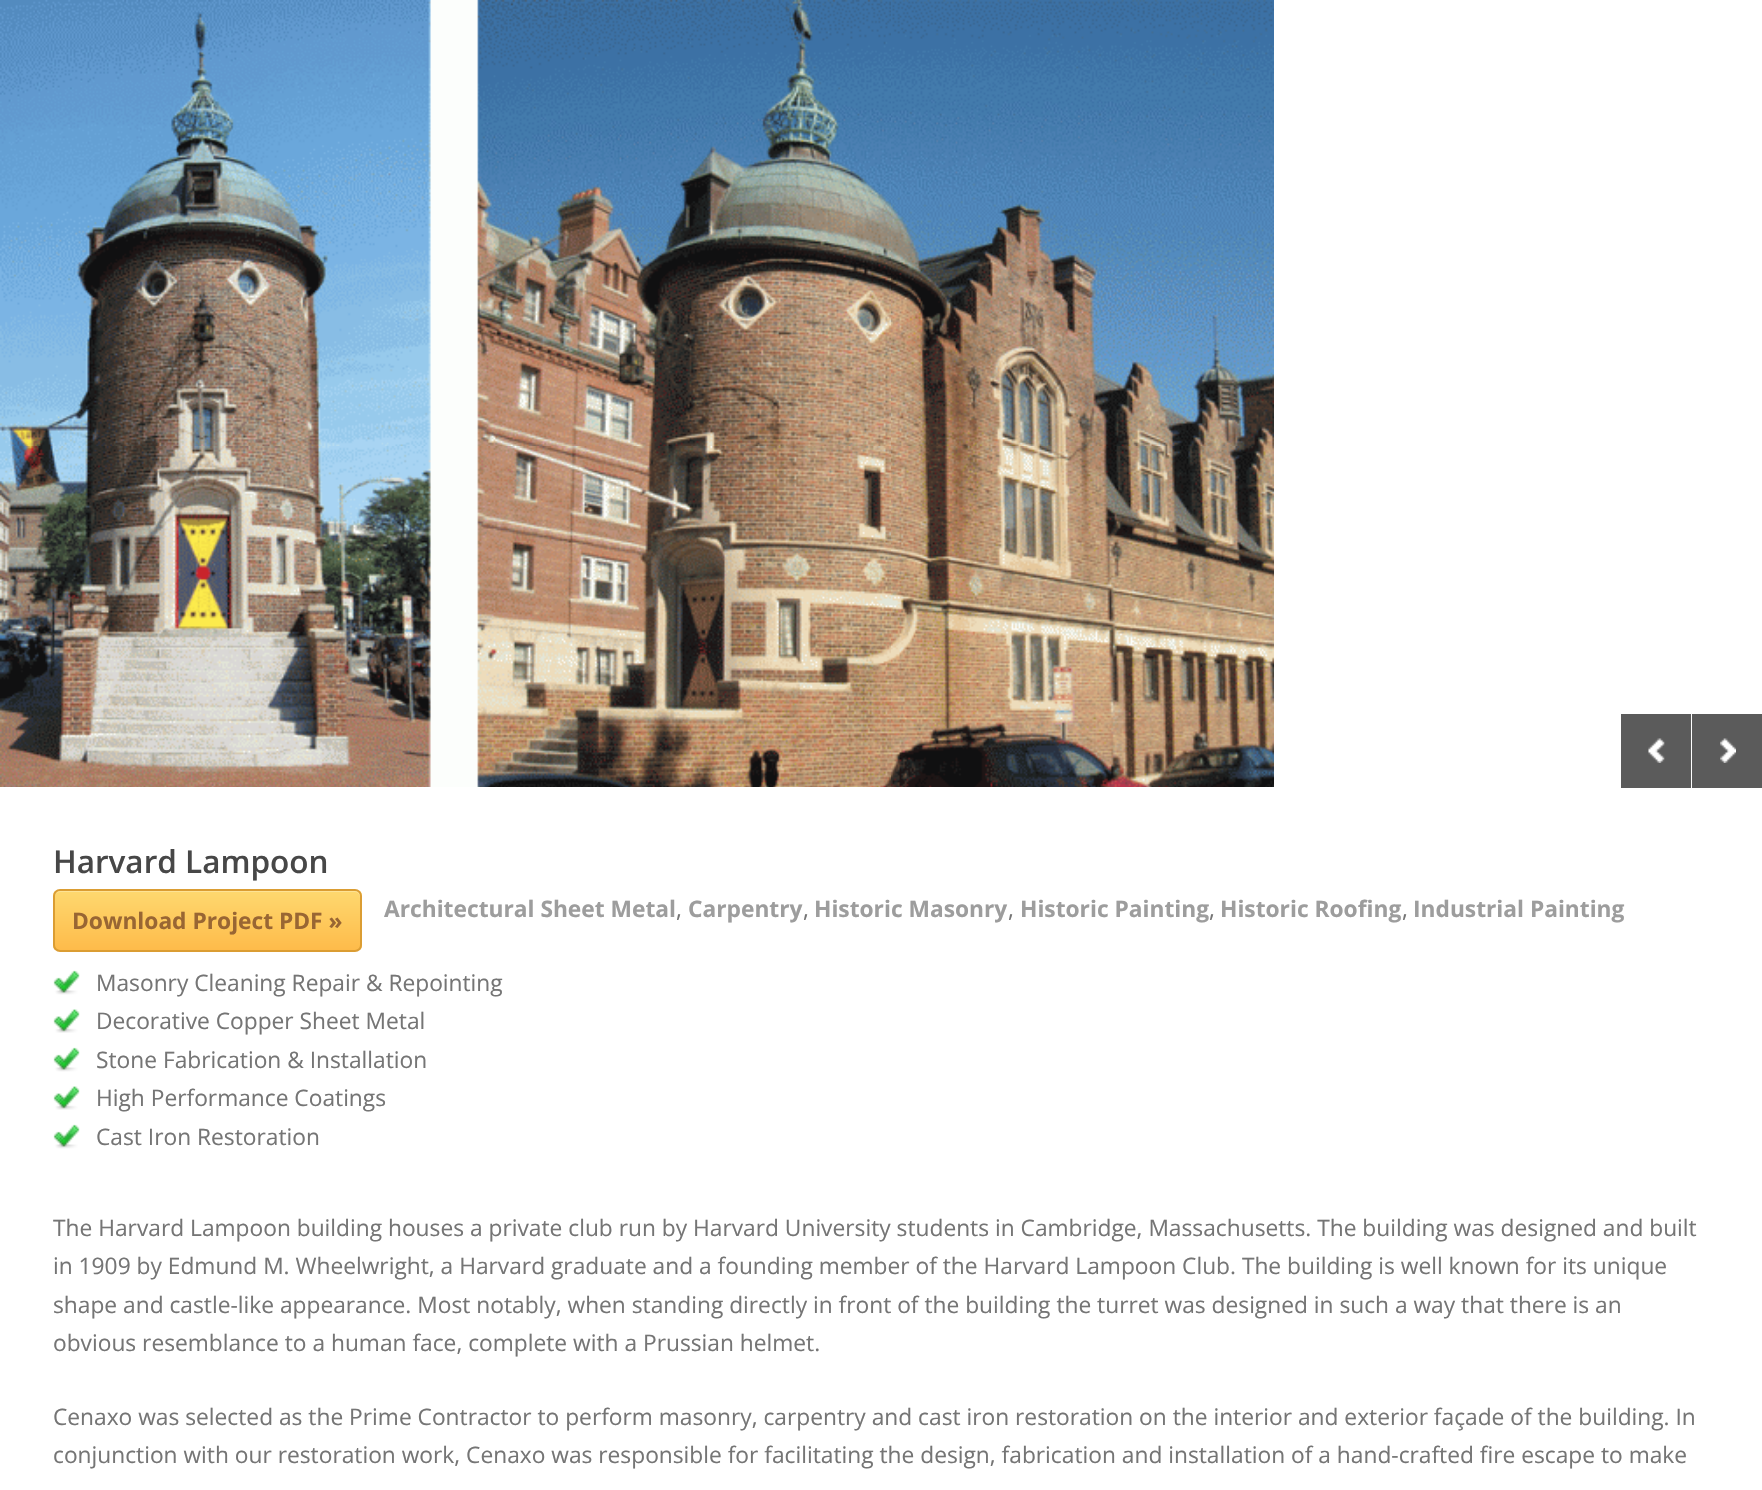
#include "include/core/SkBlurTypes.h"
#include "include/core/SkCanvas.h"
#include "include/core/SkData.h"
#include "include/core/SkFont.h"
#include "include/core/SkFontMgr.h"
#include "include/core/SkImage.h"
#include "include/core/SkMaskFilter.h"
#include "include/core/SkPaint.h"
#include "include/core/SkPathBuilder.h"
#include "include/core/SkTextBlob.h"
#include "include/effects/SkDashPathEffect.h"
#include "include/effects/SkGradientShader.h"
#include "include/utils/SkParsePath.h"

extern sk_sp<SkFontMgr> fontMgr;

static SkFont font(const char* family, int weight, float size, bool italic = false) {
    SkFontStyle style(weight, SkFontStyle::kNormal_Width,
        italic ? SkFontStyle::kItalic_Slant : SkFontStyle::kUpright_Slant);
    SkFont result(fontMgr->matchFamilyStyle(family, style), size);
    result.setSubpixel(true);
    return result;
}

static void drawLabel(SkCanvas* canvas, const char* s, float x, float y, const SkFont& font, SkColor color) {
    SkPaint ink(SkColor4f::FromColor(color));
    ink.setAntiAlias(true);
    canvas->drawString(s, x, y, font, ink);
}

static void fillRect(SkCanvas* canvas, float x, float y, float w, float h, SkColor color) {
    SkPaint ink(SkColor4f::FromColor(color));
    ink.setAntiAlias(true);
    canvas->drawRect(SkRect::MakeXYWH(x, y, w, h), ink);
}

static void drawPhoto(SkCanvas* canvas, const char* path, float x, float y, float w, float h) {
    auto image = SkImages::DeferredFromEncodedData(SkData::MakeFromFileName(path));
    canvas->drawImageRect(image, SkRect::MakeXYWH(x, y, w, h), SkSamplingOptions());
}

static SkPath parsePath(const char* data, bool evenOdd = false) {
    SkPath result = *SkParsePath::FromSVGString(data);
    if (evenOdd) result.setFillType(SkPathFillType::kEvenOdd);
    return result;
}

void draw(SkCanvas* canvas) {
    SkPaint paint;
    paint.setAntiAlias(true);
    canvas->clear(0xFFFFFFFF);
    drawPhoto(canvas, "assets/img1.png", 0, 0, 1274, 787);
    fillRect(canvas, 1621, 714, 70, 74, 0xFF5B5B5B);
    drawPhoto(canvas, "assets/img2.png", 1648, 738, 17, 25);
    fillRect(canvas, 1692, 714, 70, 74, 0xFF5B5B5B);
    drawPhoto(canvas, "assets/img3.png", 1720, 738, 16, 25);
    SkFont font1 = font("Open Sans", 600, 31.5f);
    drawLabel(canvas, "Harvard Lampoon", 53, 873, font1, 0xFF474747);
    canvas->save();
    canvas->clipPath(parsePath("M60 889H355C359 889 362 892 362 896V945C362 949 359 952 355 952H60C56 952 53 949 53 945V896C53 892 56 889 60 889Z"), true);
    {
        const SkColor colors[] = {0xFFFED86F, 0xFFFEBB4A};
        const float stops[] = {0, 1};
        const SkPoint ends[] = {{207, 891}, {207, 950}};
        paint.setShader(SkGradientShader::MakeLinear(ends, colors, stops, 2, SkTileMode::kClamp));
        paint.setAlpha(255);
    }
    canvas->drawRect(SkRect::MakeXYWH(53, 891, 309, 59), paint);
    canvas->restore();
    paint.setShader(nullptr);
    paint.setColor(0xFFFEE395);
    canvas->drawPath(parsePath("M60 892H355C358 892 360 895 360 898V948C361 947 361 946 361 945V896C361 893 359 891 356 891H59C56 891 54 893 54 896V898C54 895 57 892 60 892Z"), paint);
    paint.setStroke(true);
    paint.setStrokeWidth(2);
    paint.setColor(0xFFDB9D33);
    canvas->drawRoundRect(SkRect::MakeXYWH(54, 890, 307, 61), 6, 6, paint);
    SkFont font2 = font("Open Sans", 700, 22.75f);
    drawLabel(canvas, "Download Project PDF »", 72, 929, font2, 0xFF996633);
    drawLabel(canvas, "Architectural Sheet Metal", 384, 917, font2, 0xFF9D9D9D);
    SkFont font3 = font("Open Sans", 400, 22.75f);
    drawLabel(canvas, ",", 676, 917, font3, 0xFF757575);
    drawLabel(canvas, "Carpentry", 688, 917, font2, 0xFF9D9D9D);
    drawLabel(canvas, ",", 803, 917, font3, 0xFF757575);
    drawLabel(canvas, "Historic Masonry", 814, 917, font2, 0xFF9D9D9D);
    drawLabel(canvas, ",", 1008, 917, font3, 0xFF757575);
    drawLabel(canvas, "Historic Painting", 1020, 917, font2, 0xFF9D9D9D);
    drawLabel(canvas, ",", 1209, 917, font3, 0xFF757575);
    drawLabel(canvas, "Historic Roofing", 1220, 917, font2, 0xFF9D9D9D);
    drawLabel(canvas, ",", 1402, 917, font3, 0xFF757575);
    drawLabel(canvas, "Industrial Painting", 1413, 917, font2, 0xFF9D9D9D);
    drawPhoto(canvas, "assets/img4.png", 53, 970, 27, 25);
    drawLabel(canvas, "Masonry Cleaning Repair & Repointing", 96, 991, font3, 0xFF757575);
    drawPhoto(canvas, "assets/img5.png", 53, 1009, 27, 24);
    drawLabel(canvas, "Decorative Copper Sheet Metal", 96, 1029, font3, 0xFF757575);
    drawPhoto(canvas, "assets/img4.png", 53, 1047, 27, 25);
    drawLabel(canvas, "Stone Fabrication & Installation", 96, 1068, font3, 0xFF757575);
    drawPhoto(canvas, "assets/img5.png", 53, 1086, 27, 24);
    drawLabel(canvas, "High Performance Coatings", 96, 1106, font3, 0xFF757575);
    drawPhoto(canvas, "assets/img4.png", 53, 1124, 27, 25);
    drawLabel(canvas, "Cast Iron Restoration", 96, 1145, font3, 0xFF757575);
    drawLabel(canvas, "The Harvard Lampoon building houses a private club run by Harvard University students in Cambridge, Massachusetts. The building was designed and built", 53, 1236, font3, 0xFF757575);
    drawLabel(canvas, "in 1909 by Edmund M. Wheelwright, a Harvard graduate and a founding member of the Harvard Lampoon Club. The building is well known for its unique", 53, 1274, font3, 0xFF757575);
    drawLabel(canvas, "shape and castle-like appearance. Most notably, when standing directly in front of the building the turret was designed in such a way that there is an", 53, 1313, font3, 0xFF757575);
    drawLabel(canvas, "obvious resemblance to a human face, complete with a Prussian helmet.", 53, 1351, font3, 0xFF757575);
    drawLabel(canvas, "Cenaxo was selected as the Prime Contractor to perform masonry, carpentry and cast iron restoration on the interior and exterior façade of the building. In", 53, 1425, font3, 0xFF757575);
    drawLabel(canvas, "conjunction with our restoration work, Cenaxo was responsible for facilitating the design, fabrication and installation of a hand-crafted fire escape to make", 53, 1463, font3, 0xFF757575);
}
